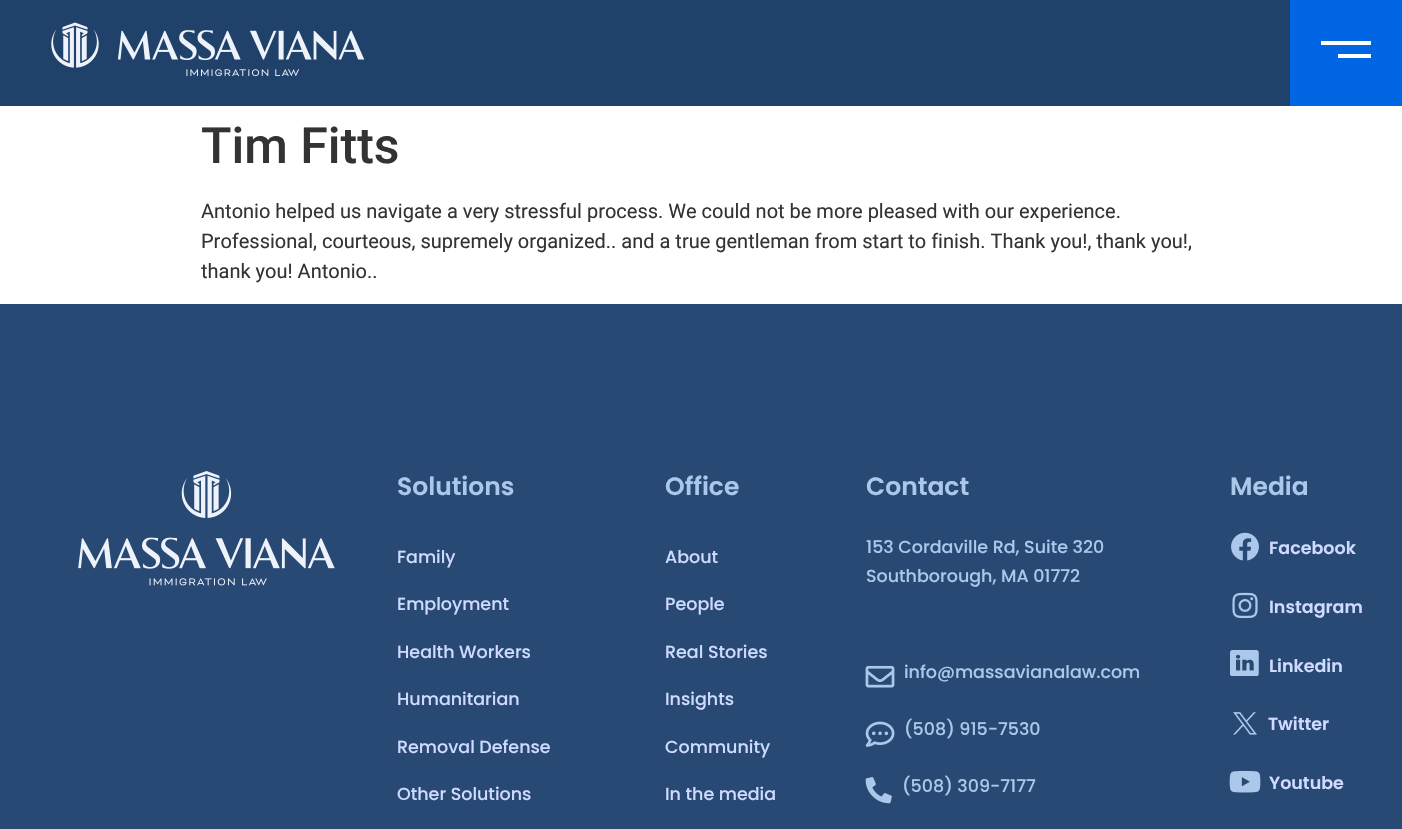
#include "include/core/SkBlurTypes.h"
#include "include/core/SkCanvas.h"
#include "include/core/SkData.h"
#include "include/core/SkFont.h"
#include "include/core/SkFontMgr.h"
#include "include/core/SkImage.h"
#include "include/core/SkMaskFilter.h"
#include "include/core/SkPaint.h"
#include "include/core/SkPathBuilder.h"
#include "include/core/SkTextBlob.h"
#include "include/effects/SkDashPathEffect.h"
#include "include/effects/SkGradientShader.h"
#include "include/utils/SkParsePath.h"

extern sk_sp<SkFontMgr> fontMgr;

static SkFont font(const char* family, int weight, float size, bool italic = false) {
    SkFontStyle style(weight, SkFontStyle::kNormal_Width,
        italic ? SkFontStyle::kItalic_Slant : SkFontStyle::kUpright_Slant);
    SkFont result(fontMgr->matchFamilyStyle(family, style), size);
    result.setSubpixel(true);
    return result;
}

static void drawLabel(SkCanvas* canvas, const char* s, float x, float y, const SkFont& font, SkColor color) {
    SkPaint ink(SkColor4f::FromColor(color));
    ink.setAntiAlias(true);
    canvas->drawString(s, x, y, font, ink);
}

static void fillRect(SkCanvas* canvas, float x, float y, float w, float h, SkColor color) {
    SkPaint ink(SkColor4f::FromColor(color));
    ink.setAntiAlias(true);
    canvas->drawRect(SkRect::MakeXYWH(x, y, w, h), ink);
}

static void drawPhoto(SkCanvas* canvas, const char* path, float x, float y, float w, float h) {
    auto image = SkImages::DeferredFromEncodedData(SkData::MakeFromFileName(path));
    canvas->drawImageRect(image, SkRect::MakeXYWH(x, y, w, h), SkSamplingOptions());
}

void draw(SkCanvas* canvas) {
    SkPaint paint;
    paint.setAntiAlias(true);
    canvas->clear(0xFFFFFFFF);
    fillRect(canvas, 0, 0, 1290, 106, 0xFF204169);
    drawPhoto(canvas, "assets/img1.png", 51, 22, 314, 54);
    fillRect(canvas, 1290, 0, 112, 106, 0xFF0066E4);
    fillRect(canvas, 1321, 41, 50, 4, 0xFFFFFFFF);
    fillRect(canvas, 1338, 54, 33, 4, 0xFFFFFFFF);
    SkFont font1 = font("Roboto", 500, 50);
    drawLabel(canvas, "Tim Fitts", 201, 163, font1, 0xFF333333);
    SkFont font2 = font("Roboto", 400, 20);
    drawLabel(canvas, "Antonio helped us navigate a very stressful process. We could not be more pleased with our experience.", 201, 218, font2, 0xFF333333);
    drawLabel(canvas, "Professional, courteous, supremely organized.. and a true gentleman from start to finish. Thank you!, thank you!,", 201, 248, font2, 0xFF333333);
    drawLabel(canvas, "thank you! Antonio..", 201, 278, font2, 0xFF333333);
    fillRect(canvas, 0, 304, 1402, 525, 0xFF274973);
    drawPhoto(canvas, "assets/img2.png", 78, 471, 257, 115);
    SkFont font3 = font("Poppins", 600, 25);
    drawLabel(canvas, "Solutions", 397, 495, font3, 0xFFABC8EB);
    SkFont font4 = font("Poppins", 500, 17.5f);
    drawLabel(canvas, "Family", 397, 563, font4, 0xFFCFDAFE);
    drawLabel(canvas, "Employment", 397, 610, font4, 0xFFCFDAFE);
    drawLabel(canvas, "Health Workers", 397, 658, font4, 0xFFCFDAFE);
    drawLabel(canvas, "Humanitarian", 397, 705, font4, 0xFFCFDAFE);
    drawLabel(canvas, "Removal Defense", 397, 753, font4, 0xFFCFDAFE);
    drawLabel(canvas, "Other Solutions", 397, 800, font4, 0xFFCFDAFE);
    drawLabel(canvas, "Office", 665, 495, font3, 0xFFABC8EB);
    drawLabel(canvas, "About", 665, 563, font4, 0xFFCFDAFE);
    drawLabel(canvas, "People", 665, 610, font4, 0xFFCFDAFE);
    drawLabel(canvas, "Real Stories", 665, 658, font4, 0xFFCFDAFE);
    drawLabel(canvas, "Insights", 665, 705, font4, 0xFFCFDAFE);
    drawLabel(canvas, "Community", 665, 753, font4, 0xFFCFDAFE);
    drawLabel(canvas, "In the media", 665, 800, font4, 0xFFCFDAFE);
    drawLabel(canvas, "Contact", 866, 495, font3, 0xFFABC8EB);
    drawLabel(canvas, "153 Cordaville Rd, Suite 320", 866, 553, font4, 0xFFABC8EB);
    drawLabel(canvas, "Southborough, MA 01772", 866, 582, font4, 0xFFABC8EB);
    drawPhoto(canvas, "assets/img3.png", 865, 665, 30, 23);
    drawLabel(canvas, "info@massavianalaw.com", 904, 678, font4, 0xFFABC8EB);
    drawPhoto(canvas, "assets/img4.png", 865, 721, 30, 26);
    drawLabel(canvas, "(508) 915-7530", 904, 735, font4, 0xFFABC8EB);
    drawPhoto(canvas, "assets/img5.png", 865, 777, 27, 27);
    drawLabel(canvas, "(508) 309-7177", 902, 792, font4, 0xFFABC8EB);
    drawLabel(canvas, "Media", 1230, 495, font3, 0xFFABC8EB);
    drawPhoto(canvas, "assets/img6.png", 1231, 532, 28, 29);
    SkFont font5 = font("Poppins", 600, 17.5f);
    drawLabel(canvas, "Facebook", 1269, 554, font5, 0xFFCFDAFE);
    drawPhoto(canvas, "assets/img7.png", 1232, 592, 26, 27);
    drawLabel(canvas, "Instagram", 1269, 613, font5, 0xFFCFDAFE);
    drawPhoto(canvas, "assets/img8.png", 1230, 650, 29, 26);
    drawLabel(canvas, "Linkedin", 1269, 672, font5, 0xFFCFDAFE);
    drawPhoto(canvas, "assets/img9.png", 1233, 712, 24, 23);
    drawLabel(canvas, "Twitter", 1268, 730, font5, 0xFFCFDAFE);
    drawPhoto(canvas, "assets/img10.png", 1229, 770, 32, 23);
    drawLabel(canvas, "Youtube", 1269, 789, font5, 0xFFCFDAFE);
}
